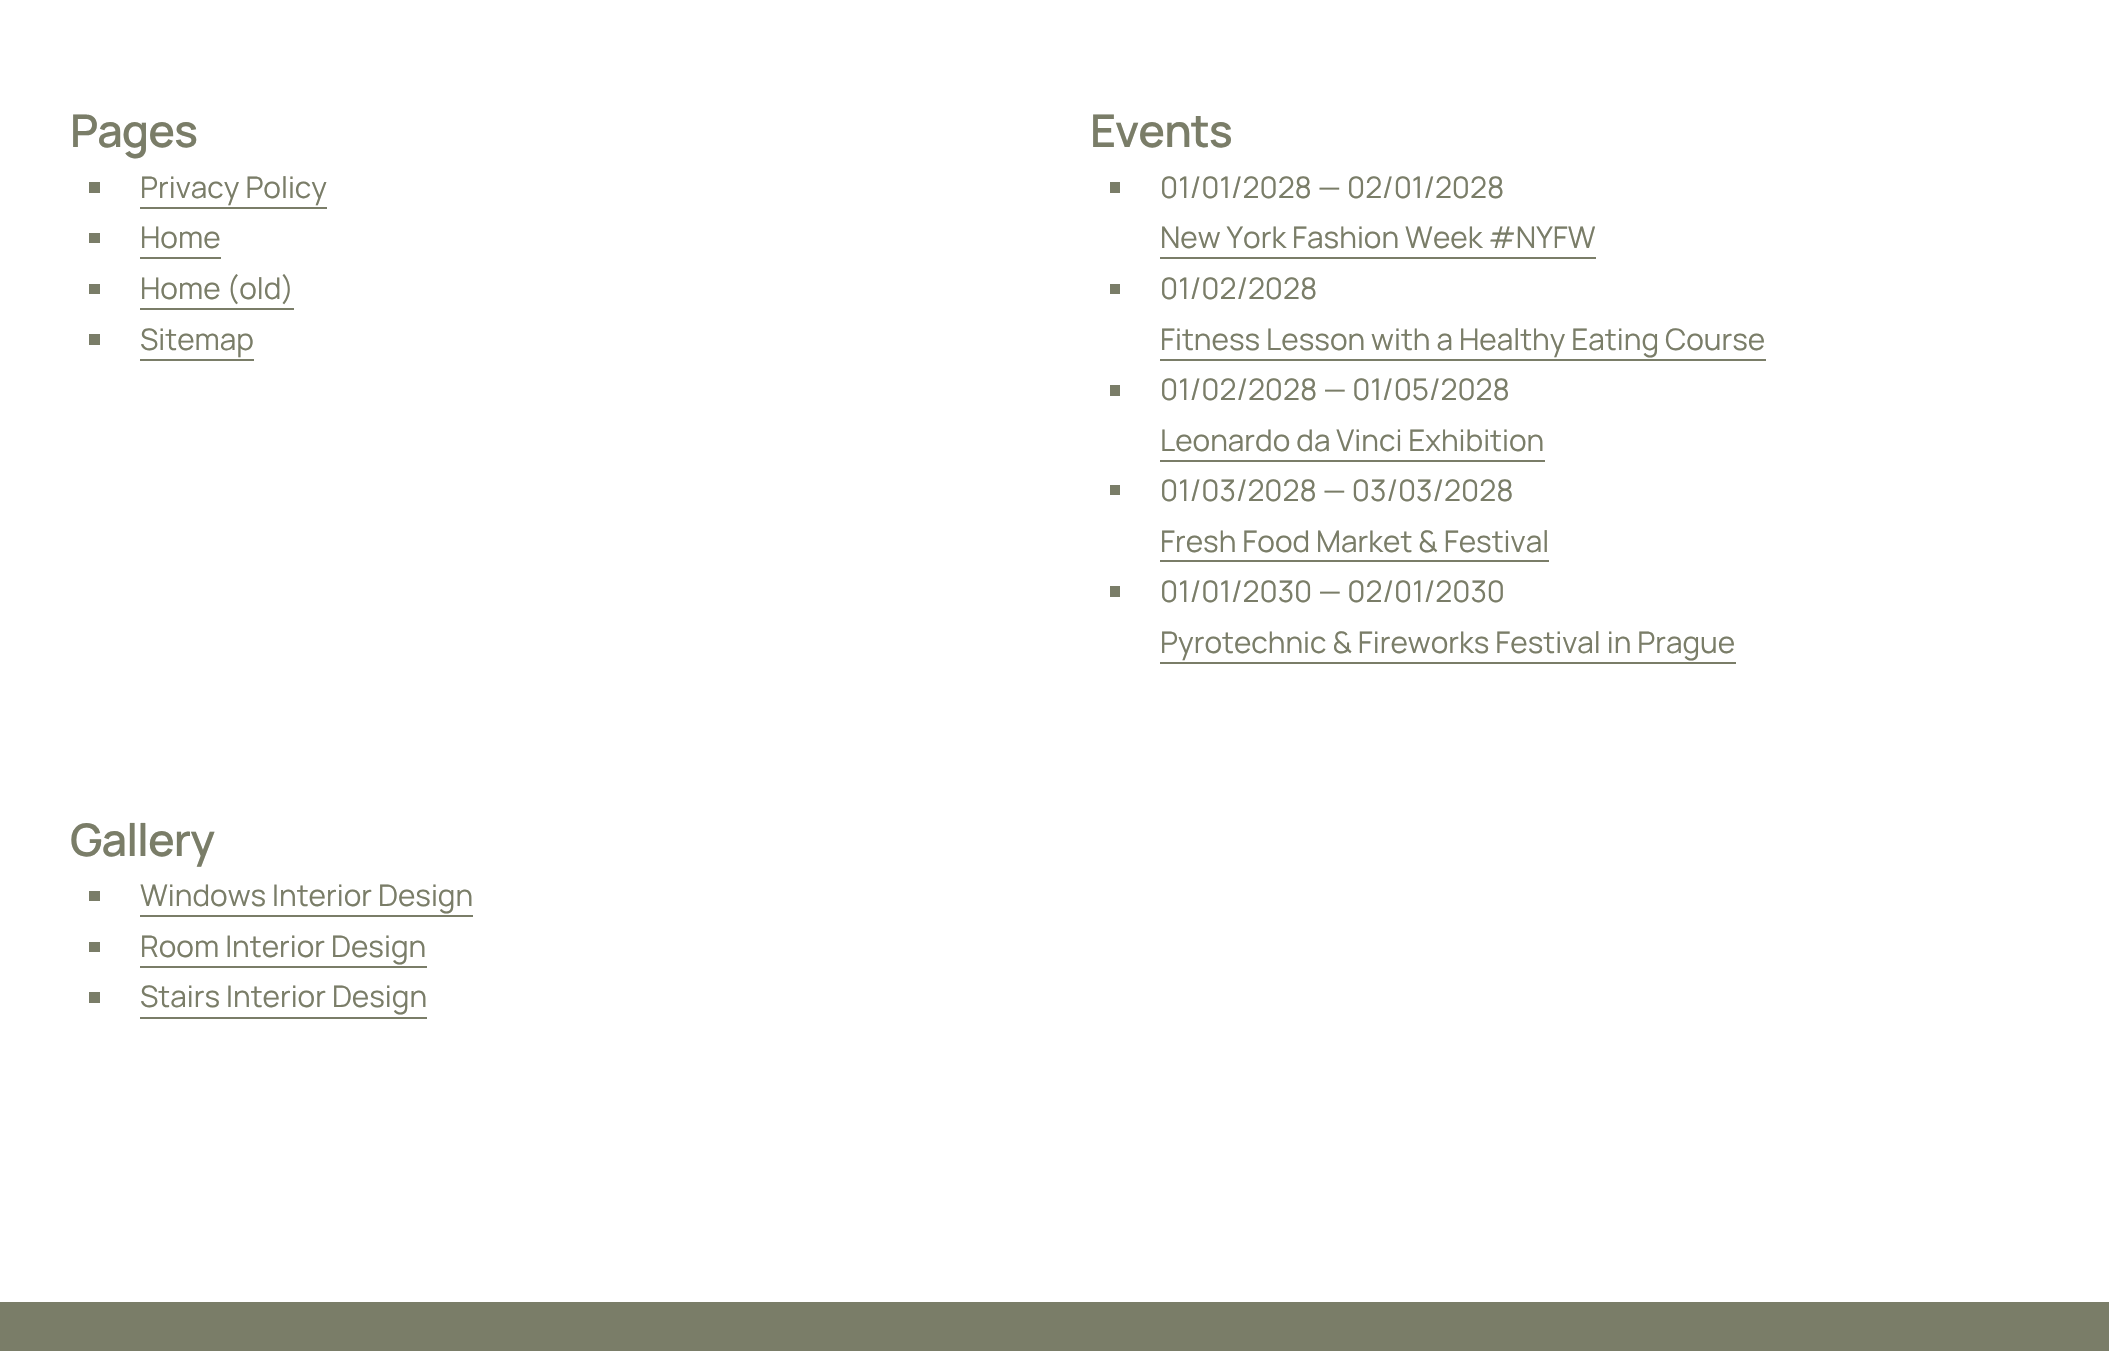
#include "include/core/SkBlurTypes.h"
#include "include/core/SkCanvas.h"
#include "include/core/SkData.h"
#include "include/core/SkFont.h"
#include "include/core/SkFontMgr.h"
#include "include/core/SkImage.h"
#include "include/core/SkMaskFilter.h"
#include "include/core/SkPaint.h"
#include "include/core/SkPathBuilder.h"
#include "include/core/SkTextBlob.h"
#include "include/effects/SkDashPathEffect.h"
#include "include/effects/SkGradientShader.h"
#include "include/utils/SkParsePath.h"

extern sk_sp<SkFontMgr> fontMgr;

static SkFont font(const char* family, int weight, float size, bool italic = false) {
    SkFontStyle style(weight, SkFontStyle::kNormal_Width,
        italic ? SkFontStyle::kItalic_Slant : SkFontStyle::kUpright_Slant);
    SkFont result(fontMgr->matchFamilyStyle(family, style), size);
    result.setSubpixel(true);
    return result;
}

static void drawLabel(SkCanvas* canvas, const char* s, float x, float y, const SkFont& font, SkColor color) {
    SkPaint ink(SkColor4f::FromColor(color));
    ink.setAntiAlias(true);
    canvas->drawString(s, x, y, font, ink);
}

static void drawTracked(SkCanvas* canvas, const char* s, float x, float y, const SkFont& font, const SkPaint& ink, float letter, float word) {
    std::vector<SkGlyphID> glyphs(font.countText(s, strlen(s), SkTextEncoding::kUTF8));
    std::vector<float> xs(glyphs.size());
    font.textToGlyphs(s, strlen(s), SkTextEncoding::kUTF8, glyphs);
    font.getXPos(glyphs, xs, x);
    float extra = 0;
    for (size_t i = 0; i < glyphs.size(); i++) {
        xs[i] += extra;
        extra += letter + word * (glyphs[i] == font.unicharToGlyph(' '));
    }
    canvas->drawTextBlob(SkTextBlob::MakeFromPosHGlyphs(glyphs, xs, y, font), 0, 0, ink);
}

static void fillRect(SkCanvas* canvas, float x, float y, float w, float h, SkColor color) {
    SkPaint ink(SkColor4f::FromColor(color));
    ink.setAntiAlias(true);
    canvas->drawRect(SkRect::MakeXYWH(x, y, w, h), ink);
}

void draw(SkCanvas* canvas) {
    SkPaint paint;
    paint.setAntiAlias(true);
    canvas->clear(0xFFFFFFFF);
    SkFont font1 = font("Manrope", 600, 45);
    paint.setColor(0xFF7A7D68);
    drawTracked(canvas, "Pages", 70, 147, font1, paint, -1, 0);
    fillRect(canvas, 89, 182, 11, 11, 0xFF7A7D68);
    SkFont font2 = font("Manrope", 400, 29.75f);
    drawLabel(canvas, "Privacy Policy", 140, 198, font2, 0xFF7A7D68);
    fillRect(canvas, 140, 207, 187, 2, 0xFF7A7D68);
    fillRect(canvas, 89, 233, 11, 10, 0xFF7A7D68);
    drawLabel(canvas, "Home", 140, 248, font2, 0xFF7A7D68);
    fillRect(canvas, 140, 257, 81, 2, 0xFF7A7D68);
    fillRect(canvas, 89, 284, 11, 10, 0xFF7A7D68);
    drawLabel(canvas, "Home (old)", 140, 299, font2, 0xFF7A7D68);
    fillRect(canvas, 140, 308, 154, 2, 0xFF7A7D68);
    fillRect(canvas, 89, 334, 11, 11, 0xFF7A7D68);
    drawLabel(canvas, "Sitemap", 140, 350, font2, 0xFF7A7D68);
    fillRect(canvas, 140, 359, 114, 2, 0xFF7A7D68);
    drawTracked(canvas, "Events", 1090, 147, font1, paint, -1, 0);
    fillRect(canvas, 1110, 182, 10, 11, 0xFF7A7D68);
    drawLabel(canvas, "01/01/2028 — 02/01/2028", 1160, 198, font2, 0xFF7A7D68);
    drawLabel(canvas, "New York Fashion Week #NYFW", 1160, 248, font2, 0xFF7A7D68);
    fillRect(canvas, 1160, 257, 436, 2, 0xFF7A7D68);
    fillRect(canvas, 1110, 284, 10, 10, 0xFF7A7D68);
    drawLabel(canvas, "01/02/2028", 1160, 299, font2, 0xFF7A7D68);
    drawLabel(canvas, "Fitness Lesson with a Healthy Eating Course", 1160, 350, font2, 0xFF7A7D68);
    fillRect(canvas, 1160, 359, 606, 2, 0xFF7A7D68);
    fillRect(canvas, 1110, 385, 10, 11, 0xFF7A7D68);
    drawLabel(canvas, "01/02/2028 — 01/05/2028", 1160, 400, font2, 0xFF7A7D68);
    drawLabel(canvas, "Leonardo da Vinci Exhibition", 1160, 451, font2, 0xFF7A7D68);
    fillRect(canvas, 1160, 460, 385, 2, 0xFF7A7D68);
    fillRect(canvas, 1110, 485, 10, 10, 0xFF7A7D68);
    drawLabel(canvas, "01/03/2028 — 03/03/2028", 1160, 501, font2, 0xFF7A7D68);
    drawLabel(canvas, "Fresh Food Market & Festival", 1160, 552, font2, 0xFF7A7D68);
    fillRect(canvas, 1160, 560, 389, 2, 0xFF7A7D68);
    fillRect(canvas, 1110, 586, 10, 11, 0xFF7A7D68);
    drawLabel(canvas, "01/01/2030 — 02/01/2030", 1160, 602, font2, 0xFF7A7D68);
    drawLabel(canvas, "Pyrotechnic & Fireworks Festival in Prague", 1160, 653, font2, 0xFF7A7D68);
    fillRect(canvas, 1160, 662, 576, 2, 0xFF7A7D68);
    drawTracked(canvas, "Gallery", 70, 856, font1, paint, -1, 0);
    fillRect(canvas, 89, 891, 11, 10, 0xFF7A7D68);
    drawLabel(canvas, "Windows Interior Design", 140, 906, font2, 0xFF7A7D68);
    fillRect(canvas, 140, 915, 333, 2, 0xFF7A7D68);
    fillRect(canvas, 89, 942, 11, 10, 0xFF7A7D68);
    drawLabel(canvas, "Room Interior Design", 140, 957, font2, 0xFF7A7D68);
    fillRect(canvas, 140, 966, 287, 2, 0xFF7A7D68);
    fillRect(canvas, 89, 992, 11, 11, 0xFF7A7D68);
    drawLabel(canvas, "Stairs Interior Design", 140, 1007, font2, 0xFF7A7D68);
    fillRect(canvas, 140, 1017, 287, 2, 0xFF7A7D68);
    fillRect(canvas, 0, 1302, 2109, 49, 0xFF7A7D68);
}
